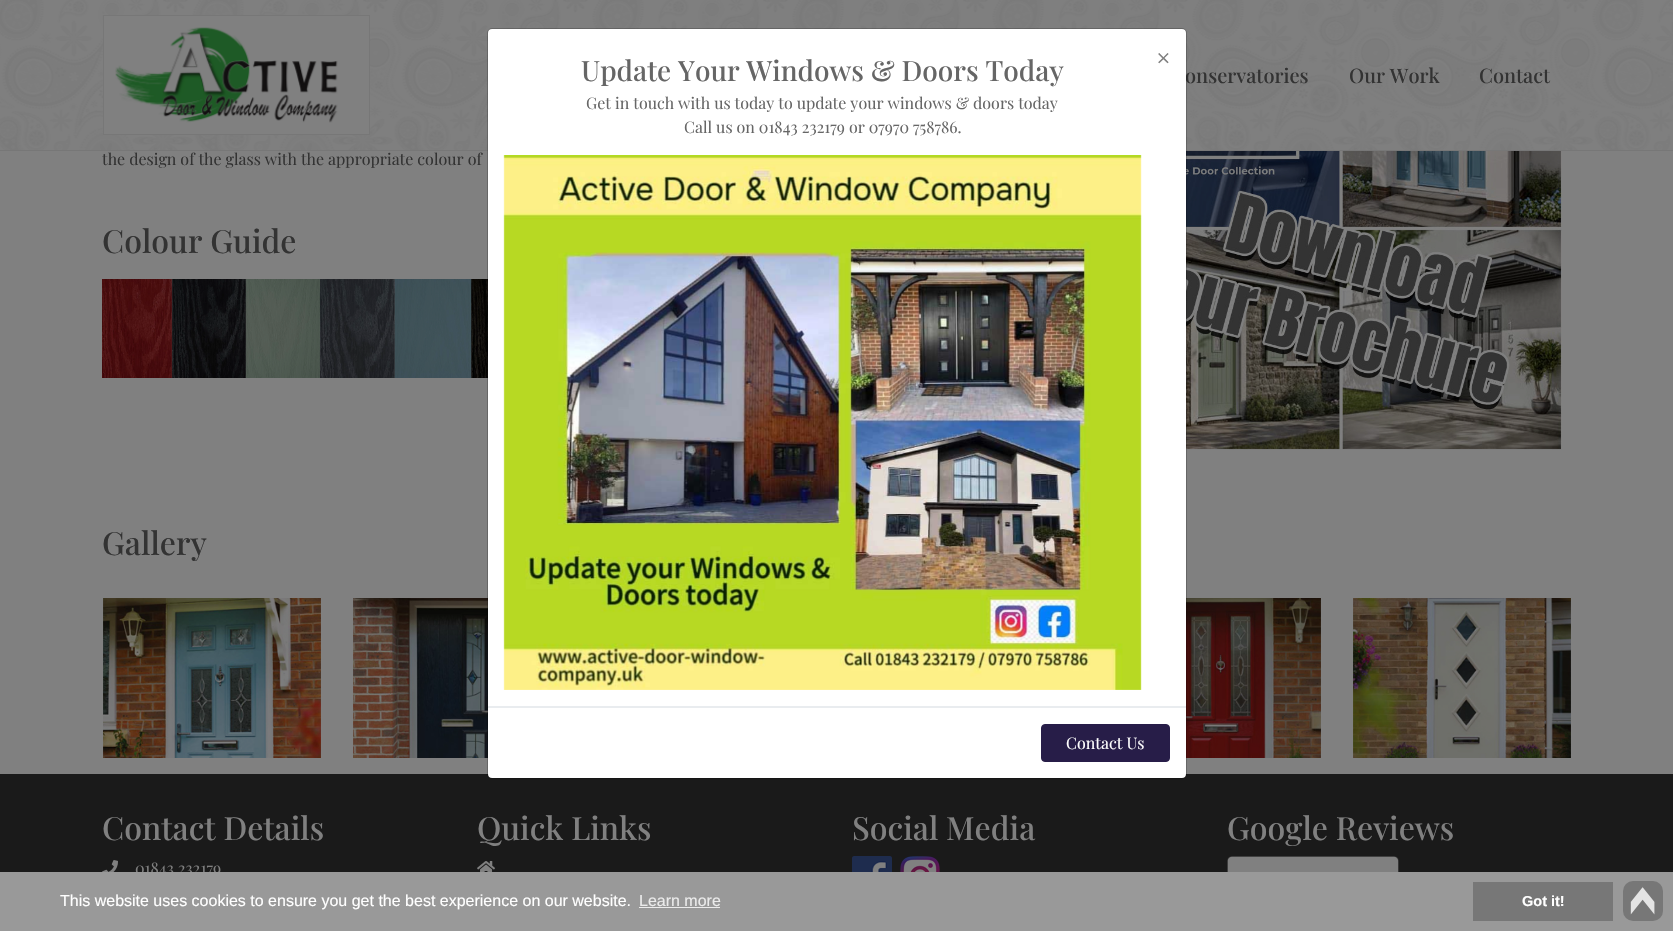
#include "include/core/SkBlurTypes.h"
#include "include/core/SkCanvas.h"
#include "include/core/SkData.h"
#include "include/core/SkFont.h"
#include "include/core/SkFontMgr.h"
#include "include/core/SkImage.h"
#include "include/core/SkMaskFilter.h"
#include "include/core/SkPaint.h"
#include "include/core/SkPathBuilder.h"
#include "include/core/SkTextBlob.h"
#include "include/effects/SkDashPathEffect.h"
#include "include/effects/SkGradientShader.h"
#include "include/utils/SkParsePath.h"

extern sk_sp<SkFontMgr> fontMgr;

static SkFont font(const char* family, int weight, float size, bool italic = false) {
    SkFontStyle style(weight, SkFontStyle::kNormal_Width,
        italic ? SkFontStyle::kItalic_Slant : SkFontStyle::kUpright_Slant);
    SkFont result(fontMgr->matchFamilyStyle(family, style), size);
    result.setSubpixel(true);
    return result;
}

static void drawLabel(SkCanvas* canvas, const char* s, float x, float y, const SkFont& font, SkColor color) {
    SkPaint ink(SkColor4f::FromColor(color));
    ink.setAntiAlias(true);
    canvas->drawString(s, x, y, font, ink);
}

static void fillRect(SkCanvas* canvas, float x, float y, float w, float h, SkColor color) {
    SkPaint ink(SkColor4f::FromColor(color));
    ink.setAntiAlias(true);
    canvas->drawRect(SkRect::MakeXYWH(x, y, w, h), ink);
}

static void fillRRect(SkCanvas* canvas, float x, float y, float w, float h, float radius, SkColor color) {
    SkPaint ink(SkColor4f::FromColor(color));
    ink.setAntiAlias(true);
    canvas->drawRoundRect(SkRect::MakeXYWH(x, y, w, h), radius, radius, ink);
}

static void drawPhoto(SkCanvas* canvas, const char* path, float x, float y, float w, float h) {
    auto image = SkImages::DeferredFromEncodedData(SkData::MakeFromFileName(path));
    canvas->drawImageRect(image, SkRect::MakeXYWH(x, y, w, h), SkSamplingOptions());
}

void draw(SkCanvas* canvas) {
    SkPaint paint;
    paint.setAntiAlias(true);
    canvas->clear(0xFF808080);
    drawPhoto(canvas, "assets/img2.png", 0, 0, 1673, 150);
    fillRect(canvas, 0, 150, 1673, 1, 0xFF777777);
    SkFont font1 = font("Playfair Display", 500, 20);
    drawLabel(canvas, "onservatories", 1185, 83, font1, 0xFF333333);
    fillRect(canvas, 0, 774, 1673, 98, 0xFF1A1A1A);
    fillRRect(canvas, 488, 29, 698, 749, 4, 0xFFFFFFFF);
    drawPhoto(canvas, "assets/img4.png", 102, 279, 386, 99);
    drawPhoto(canvas, "assets/img5.png", 1186, 151, 376, 299);
    drawPhoto(canvas, "assets/img7.png", 353, 598, 135, 160);
    drawPhoto(canvas, "assets/img8.png", 1186, 598, 135, 160);
    paint.setStroke(true);
    paint.setStrokeWidth(1);
    paint.setColor(0x33000000);
    canvas->drawRoundRect(SkRect::MakeXYWH(487.5f, 28.5f, 699, 750), 4.5f, 4.5f, paint);
    fillRect(canvas, 488, 706, 698, 2, 0xFFE9ECEF);
    SkFont font2 = font("Playfair Display", 500, 28);
    drawLabel(canvas, "Update Your Windows & Doors Today", 581, 81, font2, 0xFF666666);
    SkFont font3 = font("Playfair Display", 400, 16);
    drawLabel(canvas, "Get in touch with us today to update your windows & doors today", 586, 109, font3, 0xFF666666);
    drawLabel(canvas, "Call us on 01843 232179 or 07970 758786.", 684, 133, font3, 0xFF666666);
    drawPhoto(canvas, "assets/img1.png", 503, 155, 639, 535);
    SkFont font4 = font("Playfair Display", 700, 24);
    drawLabel(canvas, "×", 1157, 67, font4, 0xFF808080);
    paint.setStroke(false);
    paint.setColor(0xFF271D48);
    canvas->drawRoundRect(SkRect::MakeXYWH(1041.5f, 724.5f, 128, 37), 3.5f, 3.5f, paint);
    paint.setStroke(true);
    canvas->drawRoundRect(SkRect::MakeXYWH(1041.5f, 724.5f, 128, 37), 3.5f, 3.5f, paint);
    drawLabel(canvas, "Contact Us", 1066, 749, font3, 0xFFFFFFFF);
    paint.setStroke(false);
    paint.setColor(0xFF808080);
    canvas->drawRect(SkRect::MakeXYWH(103.5f, 15.5f, 266, 119), paint);
    paint.setStroke(true);
    paint.setColor(0xFF777777);
    canvas->drawRect(SkRect::MakeXYWH(103.5f, 15.5f, 266, 119), paint);
    drawPhoto(canvas, "assets/img3.png", 115, 27, 223, 96);
    drawLabel(canvas, "Our Work", 1349, 83, font1, 0xFF333333);
    drawLabel(canvas, "Contact", 1479, 83, font1, 0xFF333333);
    drawLabel(canvas, "the design of the glass with the appropriate colour of", 102, 165, font3, 0xFF333333);
    SkFont font5 = font("Playfair Display", 500, 32);
    drawLabel(canvas, "Colour Guide", 102, 253, font5, 0xFF333333);
    drawLabel(canvas, "Gallery", 102, 555, font5, 0xFF333333);
    drawPhoto(canvas, "assets/img6.png", 103, 598, 218, 160);
    drawPhoto(canvas, "assets/img9.png", 1353, 598, 218, 160);
    drawLabel(canvas, "Contact Details", 102, 840, font5, 0xFF808080);
    drawPhoto(canvas, "assets/img10.png", 102, 860, 16, 12);
    drawLabel(canvas, "01843 232179", 135, 874, font3, 0xFF808080);
    drawLabel(canvas, "Quick Links", 477, 840, font5, 0xFF808080);
    drawPhoto(canvas, "assets/img11.png", 477, 861, 18, 11);
    drawLabel(canvas, "Social Media", 852, 840, font5, 0xFF808080);
    drawPhoto(canvas, "assets/img12.png", 852, 856, 40, 16);
    drawPhoto(canvas, "assets/img13.png", 900, 856, 40, 16);
    drawLabel(canvas, "Google Reviews", 1227, 840, font5, 0xFF808080);
    drawPhoto(canvas, "assets/img14.png", 1227, 856, 172, 16);
    fillRect(canvas, 0, 872, 1673, 59, 0xFF999999);
    SkFont font6 = font("Liberation Sans", 400, 16);
    drawLabel(canvas, "This website uses cookies to ensure you get the best experience on our website.", 60, 906, font6, 0xFFFFFFFF);
    drawLabel(canvas, "Learn more", 639, 906, font6, 0xFFEBEBEB);
    fillRect(canvas, 639, 907, 81, 1, 0xFFEBEBEB);
    fillRect(canvas, 1473, 882, 140, 39, 0xFF777777);
    SkFont font7 = font("Liberation Sans", 700, 14.5f);
    drawLabel(canvas, "Got it!", 1522, 906, font7, 0xFFFFFFFF);
    fillRRect(canvas, 1623, 881, 40, 40, 10, 0xFF777777);
    drawPhoto(canvas, "assets/img15.png", 1630, 887, 25, 28);
}
